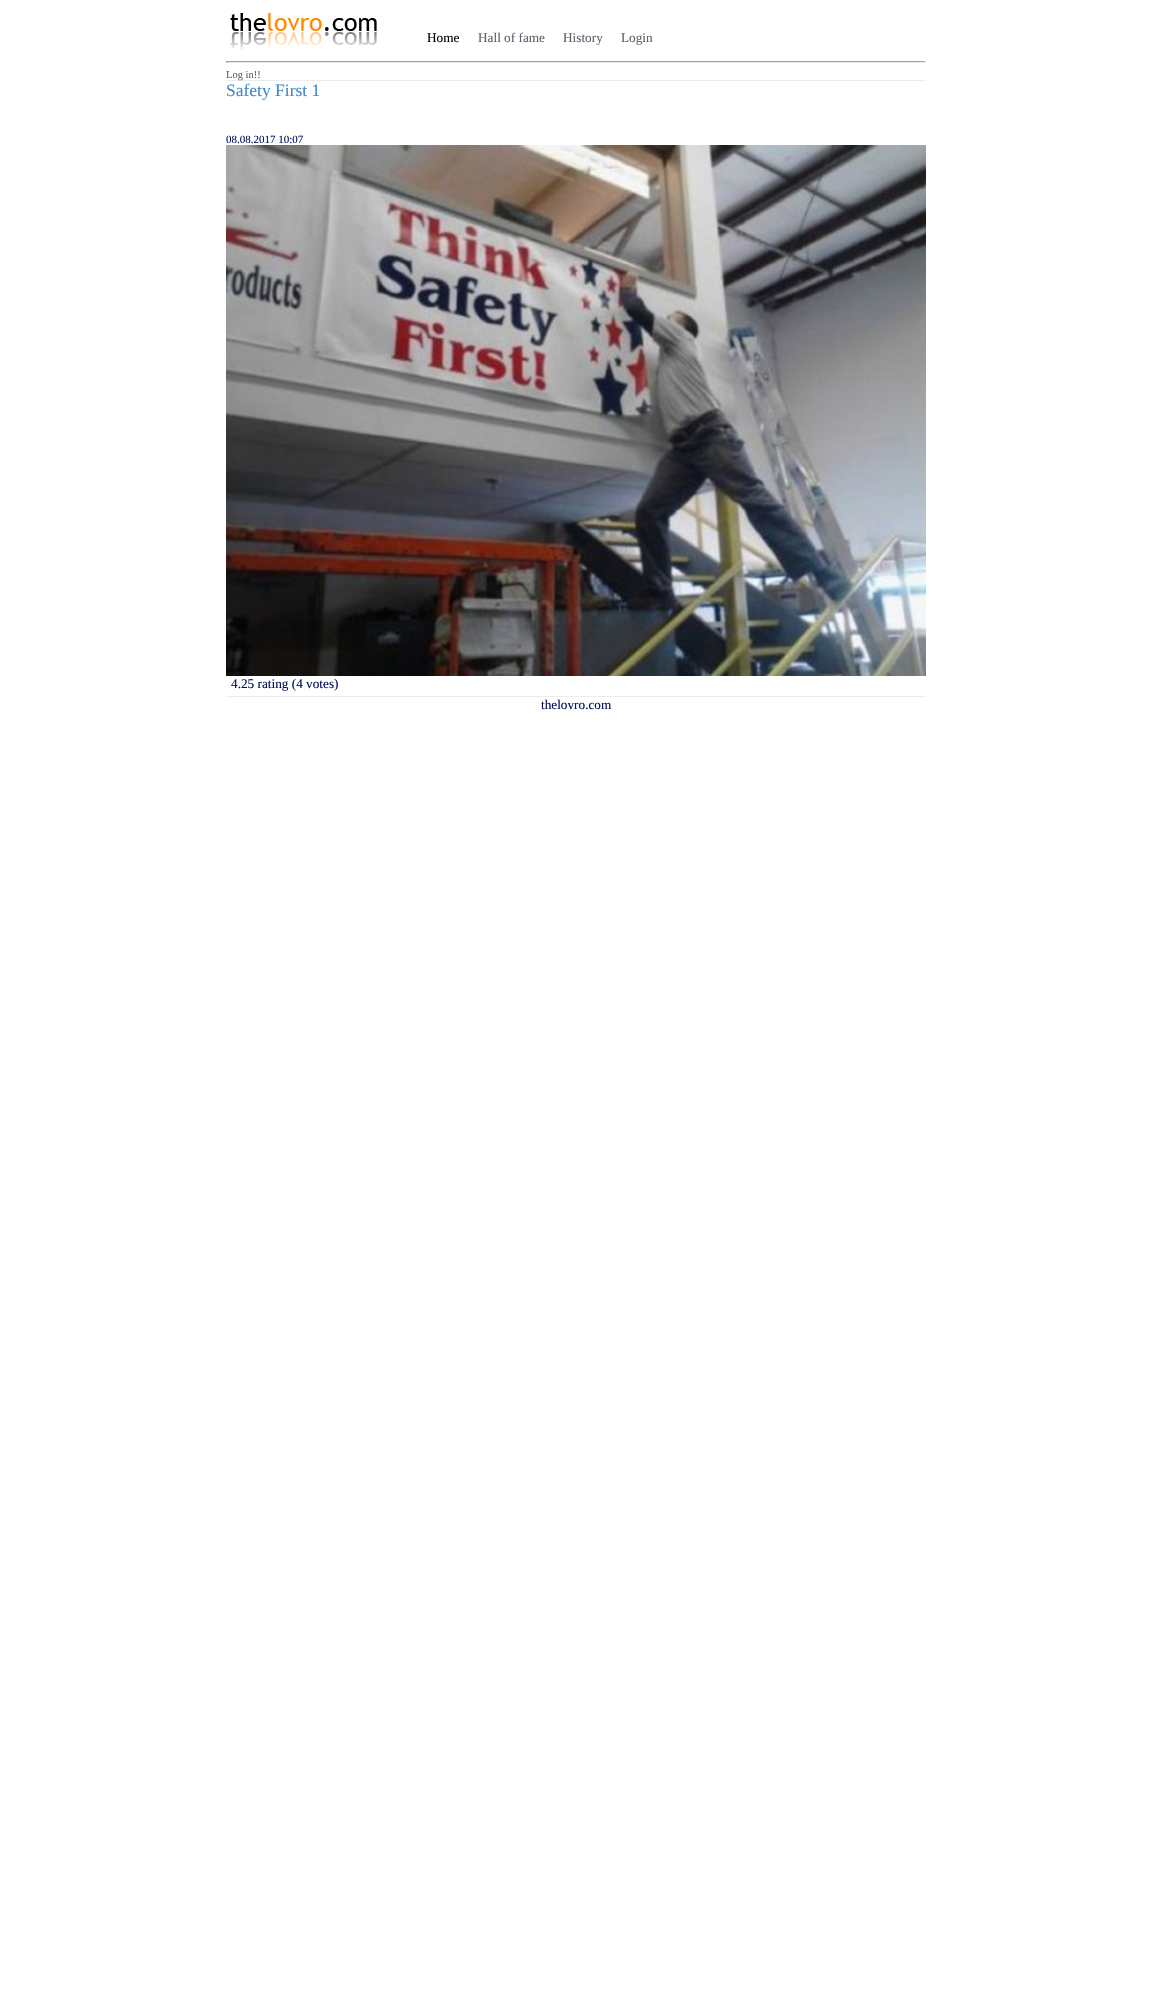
#include "include/core/SkBlurTypes.h"
#include "include/core/SkCanvas.h"
#include "include/core/SkData.h"
#include "include/core/SkFont.h"
#include "include/core/SkFontMgr.h"
#include "include/core/SkImage.h"
#include "include/core/SkMaskFilter.h"
#include "include/core/SkPaint.h"
#include "include/core/SkPathBuilder.h"
#include "include/core/SkTextBlob.h"
#include "include/effects/SkDashPathEffect.h"
#include "include/effects/SkGradientShader.h"
#include "include/utils/SkParsePath.h"

extern sk_sp<SkFontMgr> fontMgr;

static SkFont font(const char* family, int weight, float size, bool italic = false) {
    SkFontStyle style(weight, SkFontStyle::kNormal_Width,
        italic ? SkFontStyle::kItalic_Slant : SkFontStyle::kUpright_Slant);
    SkFont result(fontMgr->matchFamilyStyle(family, style), size);
    result.setSubpixel(true);
    return result;
}

static void drawLabel(SkCanvas* canvas, const char* s, float x, float y, const SkFont& font, SkColor color) {
    SkPaint ink(SkColor4f::FromColor(color));
    ink.setAntiAlias(true);
    canvas->drawString(s, x, y, font, ink);
}

static void fillRect(SkCanvas* canvas, float x, float y, float w, float h, SkColor color) {
    SkPaint ink(SkColor4f::FromColor(color));
    ink.setAntiAlias(true);
    canvas->drawRect(SkRect::MakeXYWH(x, y, w, h), ink);
}

static void drawPhoto(SkCanvas* canvas, const char* path, float x, float y, float w, float h) {
    auto image = SkImages::DeferredFromEncodedData(SkData::MakeFromFileName(path));
    canvas->drawImageRect(image, SkRect::MakeXYWH(x, y, w, h), SkSamplingOptions());
}

void draw(SkCanvas* canvas) {
    SkPaint paint;
    paint.setAntiAlias(true);
    canvas->clear(0xFFFFFFFF);
    fillRect(canvas, 226, 80, 700, 1, 0xFFEAECEF);
    drawPhoto(canvas, "assets/img1.png", 230, 13, 147, 37);
    SkFont font1 = font("Liberation Serif", 400, 13.25f);
    drawLabel(canvas, "Home", 427, 42, font1, 0xFF000000);
    drawLabel(canvas, "Hall of fame", 478, 42, font1, 0xFF586069);
    drawLabel(canvas, "History", 563, 42, font1, 0xFF586069);
    drawLabel(canvas, "Login", 621, 42, font1, 0xFF586069);
    fillRect(canvas, 226, 61, 700, 1, 0xFF9F9F9F);
    fillRect(canvas, 925, 61, 1, 2, 0xFFEEEEEE);
    fillRect(canvas, 226, 62, 700, 1, 0xFFEEEEEE);
    fillRect(canvas, 226, 61, 1, 2, 0xFF9F9F9F);
    SkFont font2 = font("Liberation Serif", 400, 10.5f);
    drawLabel(canvas, "Log in!!", 226, 78, font2, 0xFF586069);
    SkFont font3 = font("Liberation Serif", 400, 17.5f);
    drawLabel(canvas, "Safety First 1", 226, 96, font3, 0xFF3E89CA);
    SkFont font4 = font("Liberation Serif", 400, 11);
    drawLabel(canvas, "08.08.2017 10:07", 226, 143, font4, 0xFF000F5B);
    drawPhoto(canvas, "assets/img2.png", 226, 145, 700, 531);
    drawLabel(canvas, "4.25 rating (4 votes)", 231, 688, font1, 0xFF000F5B);
    fillRect(canvas, 226, 696, 700, 1, 0xFFEAECEF);
    drawLabel(canvas, "thelovro.com", 541, 709, font1, 0xFF000F5B);
}
